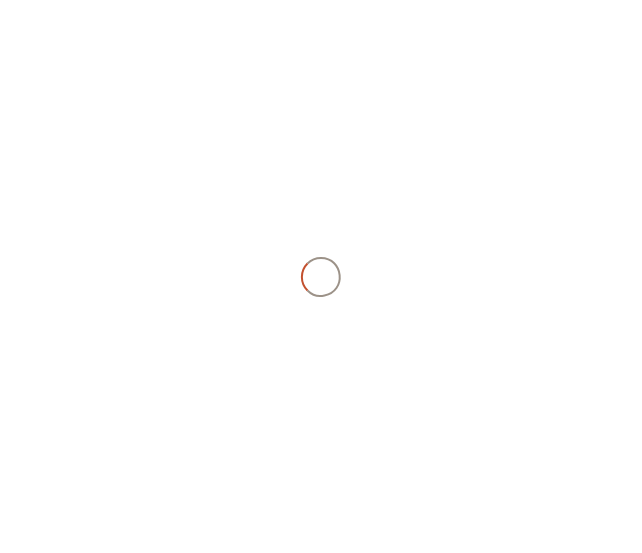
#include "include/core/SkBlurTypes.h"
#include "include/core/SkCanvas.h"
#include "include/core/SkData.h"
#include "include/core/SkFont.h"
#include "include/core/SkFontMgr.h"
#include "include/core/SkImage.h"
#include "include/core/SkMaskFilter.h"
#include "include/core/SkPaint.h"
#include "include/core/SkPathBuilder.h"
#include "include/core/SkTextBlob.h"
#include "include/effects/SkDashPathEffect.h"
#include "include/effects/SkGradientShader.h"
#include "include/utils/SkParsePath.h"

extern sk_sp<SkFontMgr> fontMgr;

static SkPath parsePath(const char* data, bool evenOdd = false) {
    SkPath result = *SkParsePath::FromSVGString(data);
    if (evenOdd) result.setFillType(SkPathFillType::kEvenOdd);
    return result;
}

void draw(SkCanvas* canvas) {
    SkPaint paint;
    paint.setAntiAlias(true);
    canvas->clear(0xFFFFFFFF);
    paint.setStroke(true);
    paint.setStrokeWidth(2);
    paint.setColor(0xFF9C9288);
    canvas->drawPath(parsePath("M307.5 263.5C311 260 316 258 321 258C343.5 258 347 291 324.5 295.5C318.5 297 312 295 307.5 290.5"), paint);
    paint.setColor(0xFFC3512F);
    canvas->drawPath(parsePath("M307.5 290.5C300 283 300 271 307.5 263.5"), paint);
}
